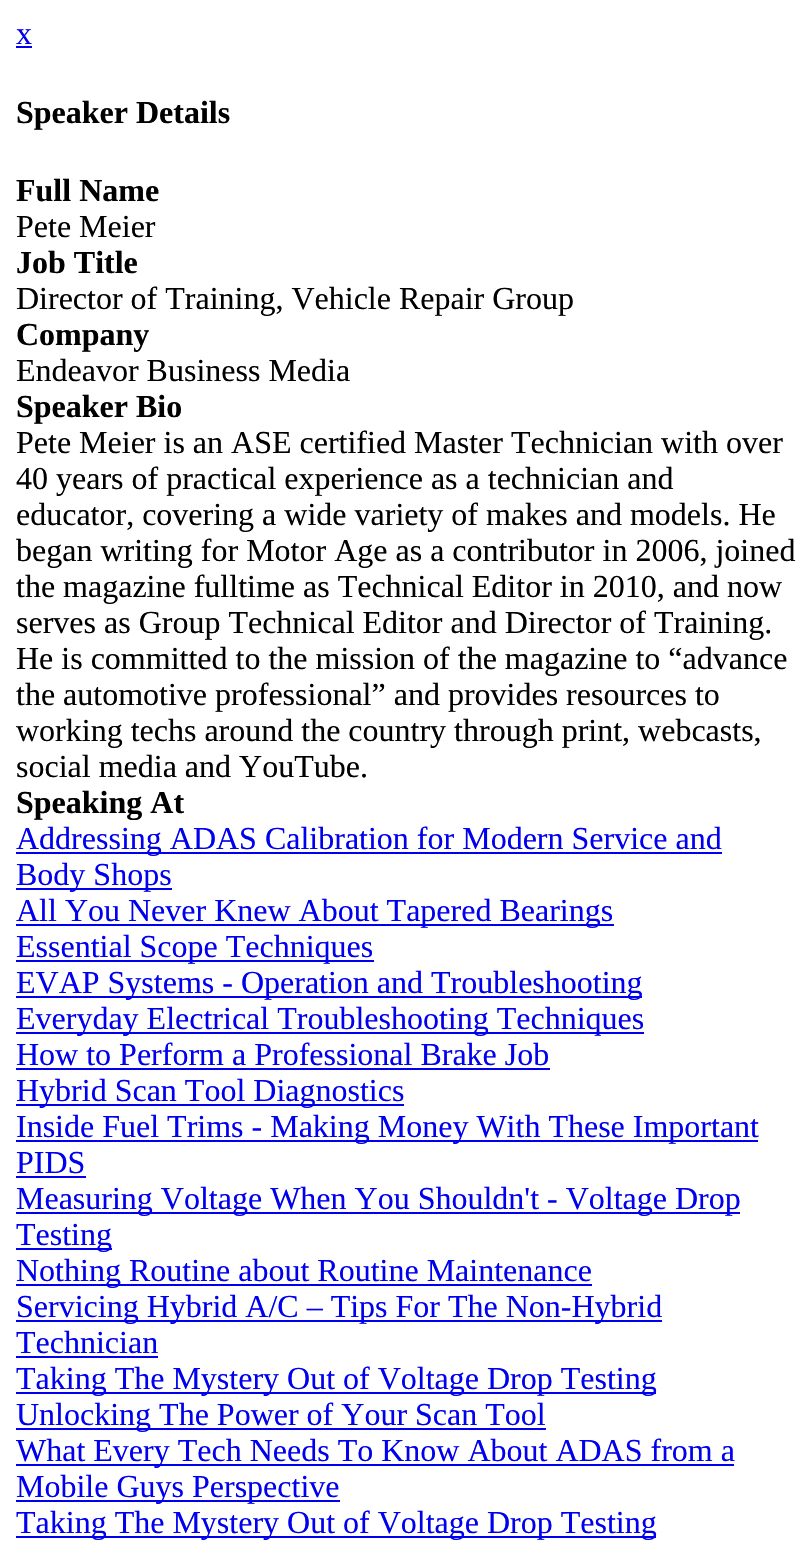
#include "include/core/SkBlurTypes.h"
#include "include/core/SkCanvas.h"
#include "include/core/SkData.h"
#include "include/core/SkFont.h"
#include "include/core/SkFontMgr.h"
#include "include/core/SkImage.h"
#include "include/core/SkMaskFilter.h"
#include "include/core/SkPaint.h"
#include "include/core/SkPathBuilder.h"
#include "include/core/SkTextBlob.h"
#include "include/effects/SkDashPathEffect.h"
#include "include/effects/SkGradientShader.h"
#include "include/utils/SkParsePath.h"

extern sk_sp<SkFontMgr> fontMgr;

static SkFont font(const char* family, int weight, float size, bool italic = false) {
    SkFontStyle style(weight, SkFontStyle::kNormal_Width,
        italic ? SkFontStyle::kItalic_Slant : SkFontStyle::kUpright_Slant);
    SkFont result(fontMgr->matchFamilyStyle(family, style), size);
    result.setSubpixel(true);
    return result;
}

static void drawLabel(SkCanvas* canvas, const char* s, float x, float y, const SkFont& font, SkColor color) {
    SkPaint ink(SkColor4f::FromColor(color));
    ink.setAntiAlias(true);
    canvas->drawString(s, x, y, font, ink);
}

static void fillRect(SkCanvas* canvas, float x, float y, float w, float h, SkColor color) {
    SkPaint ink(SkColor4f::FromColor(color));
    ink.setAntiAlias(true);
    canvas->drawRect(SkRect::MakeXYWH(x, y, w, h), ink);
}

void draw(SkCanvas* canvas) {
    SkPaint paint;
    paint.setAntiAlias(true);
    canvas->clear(0xFFFFFFFF);
    SkFont font1 = font("Liberation Serif", 400, 32);
    drawLabel(canvas, "x", 16, 44, font1, 0xFF0000EE);
    fillRect(canvas, 16, 46, 16, 2, 0xFF0000EE);
    SkFont font2 = font("Liberation Serif", 700, 32);
    drawLabel(canvas, "Speaker Details", 16, 123, font2, 0xFF000000);
    drawLabel(canvas, "Full Name", 16, 201, font2, 0xFF000000);
    drawLabel(canvas, "Pete Meier", 16, 237, font1, 0xFF000000);
    drawLabel(canvas, "Job Title", 16, 273, font2, 0xFF000000);
    drawLabel(canvas, "Director of Training, Vehicle Repair Group", 16, 309, font1, 0xFF000000);
    drawLabel(canvas, "Company", 16, 345, font2, 0xFF000000);
    drawLabel(canvas, "Endeavor Business Media", 16, 381, font1, 0xFF000000);
    drawLabel(canvas, "Speaker Bio", 16, 417, font2, 0xFF000000);
    drawLabel(canvas, "Pete Meier is an ASE certified Master Technician with over", 16, 453, font1, 0xFF000000);
    drawLabel(canvas, "40 years of practical experience as a technician and", 16, 489, font1, 0xFF000000);
    drawLabel(canvas, "educator, covering a wide variety of makes and models. He", 16, 525, font1, 0xFF000000);
    drawLabel(canvas, "began writing for Motor Age as a contributor in 2006, joined", 16, 561, font1, 0xFF000000);
    drawLabel(canvas, "the magazine fulltime as Technical Editor in 2010, and now", 16, 597, font1, 0xFF000000);
    drawLabel(canvas, "serves as Group Technical Editor and Director of Training.", 16, 633, font1, 0xFF000000);
    drawLabel(canvas, "He is committed to the mission of the magazine to “advance", 16, 669, font1, 0xFF000000);
    drawLabel(canvas, "the automotive professional” and provides resources to", 16, 705, font1, 0xFF000000);
    drawLabel(canvas, "working techs around the country through print, webcasts,", 16, 741, font1, 0xFF000000);
    drawLabel(canvas, "social media and YouTube.", 16, 777, font1, 0xFF000000);
    drawLabel(canvas, "Speaking At", 16, 813, font2, 0xFF000000);
    fillRect(canvas, 16, 852, 706, 2, 0xFF0000EE);
    drawLabel(canvas, "Addressing ADAS Calibration for Modern Service and", 16, 849, font1, 0xFF0000EE);
    fillRect(canvas, 16, 888, 156, 2, 0xFF0000EE);
    drawLabel(canvas, "Body Shops", 16, 885, font1, 0xFF0000EE);
    fillRect(canvas, 16, 924, 598, 2, 0xFF0000EE);
    drawLabel(canvas, "All You Never Knew About Tapered Bearings", 16, 921, font1, 0xFF0000EE);
    fillRect(canvas, 16, 960, 358, 2, 0xFF0000EE);
    drawLabel(canvas, "Essential Scope Techniques", 16, 957, font1, 0xFF0000EE);
    fillRect(canvas, 16, 996, 626, 2, 0xFF0000EE);
    drawLabel(canvas, "EVAP Systems - Operation and Troubleshooting", 16, 993, font1, 0xFF0000EE);
    fillRect(canvas, 16, 1032, 628, 2, 0xFF0000EE);
    drawLabel(canvas, "Everyday Electrical Troubleshooting Techniques", 16, 1029, font1, 0xFF0000EE);
    drawLabel(canvas, "How to Perform a Professional Brake Job", 16, 1065, font1, 0xFF0000EE);
    fillRect(canvas, 16, 1068, 534, 2, 0xFF0000EE);
    fillRect(canvas, 16, 1104, 388, 2, 0xFF0000EE);
    drawLabel(canvas, "Hybrid Scan Tool Diagnostics", 16, 1101, font1, 0xFF0000EE);
    fillRect(canvas, 16, 1140, 742, 2, 0xFF0000EE);
    drawLabel(canvas, "Inside Fuel Trims - Making Money With These Important", 16, 1137, font1, 0xFF0000EE);
    drawLabel(canvas, "PIDS", 16, 1173, font1, 0xFF0000EE);
    fillRect(canvas, 16, 1176, 70, 2, 0xFF0000EE);
    fillRect(canvas, 16, 1212, 724, 2, 0xFF0000EE);
    drawLabel(canvas, "Measuring Voltage When You Shouldn't - Voltage Drop", 16, 1209, font1, 0xFF0000EE);
    fillRect(canvas, 16, 1248, 96, 2, 0xFF0000EE);
    drawLabel(canvas, "Testing", 16, 1245, font1, 0xFF0000EE);
    fillRect(canvas, 16, 1284, 576, 2, 0xFF0000EE);
    drawLabel(canvas, "Nothing Routine about Routine Maintenance", 16, 1281, font1, 0xFF0000EE);
    fillRect(canvas, 16, 1320, 646, 2, 0xFF0000EE);
    drawLabel(canvas, "Servicing Hybrid A/C – Tips For The Non-Hybrid", 16, 1317, font1, 0xFF0000EE);
    drawLabel(canvas, "Technician", 16, 1353, font1, 0xFF0000EE);
    fillRect(canvas, 16, 1356, 142, 2, 0xFF0000EE);
    fillRect(canvas, 16, 1392, 640, 2, 0xFF0000EE);
    drawLabel(canvas, "Taking The Mystery Out of Voltage Drop Testing", 16, 1389, font1, 0xFF0000EE);
    fillRect(canvas, 16, 1428, 530, 2, 0xFF0000EE);
    drawLabel(canvas, "Unlocking The Power of Your Scan Tool", 16, 1425, font1, 0xFF0000EE);
    fillRect(canvas, 16, 1464, 718, 2, 0xFF0000EE);
    drawLabel(canvas, "What Every Tech Needs To Know About ADAS from a", 16, 1461, font1, 0xFF0000EE);
    fillRect(canvas, 16, 1500, 324, 2, 0xFF0000EE);
    drawLabel(canvas, "Mobile Guys Perspective", 16, 1497, font1, 0xFF0000EE);
    fillRect(canvas, 16, 1536, 640, 2, 0xFF0000EE);
    drawLabel(canvas, "Taking The Mystery Out of Voltage Drop Testing", 16, 1533, font1, 0xFF0000EE);
}
